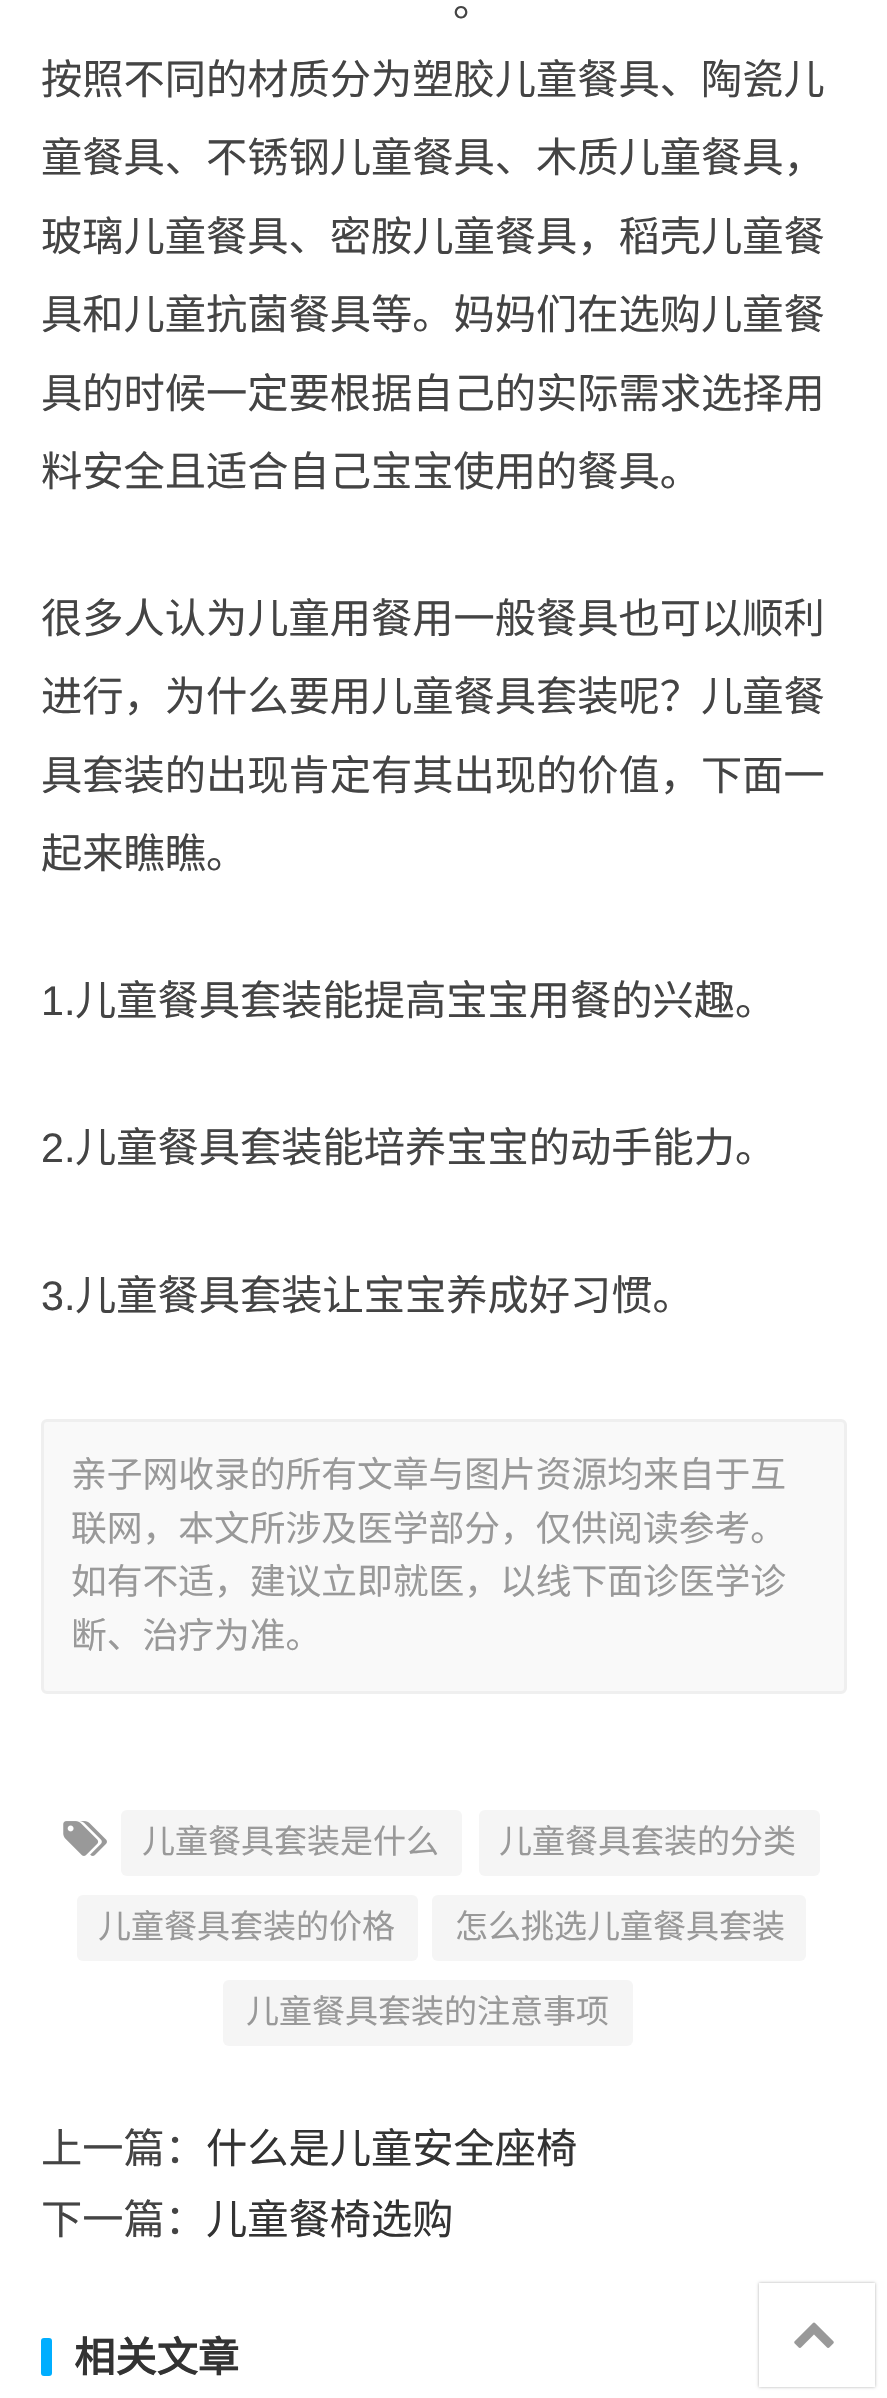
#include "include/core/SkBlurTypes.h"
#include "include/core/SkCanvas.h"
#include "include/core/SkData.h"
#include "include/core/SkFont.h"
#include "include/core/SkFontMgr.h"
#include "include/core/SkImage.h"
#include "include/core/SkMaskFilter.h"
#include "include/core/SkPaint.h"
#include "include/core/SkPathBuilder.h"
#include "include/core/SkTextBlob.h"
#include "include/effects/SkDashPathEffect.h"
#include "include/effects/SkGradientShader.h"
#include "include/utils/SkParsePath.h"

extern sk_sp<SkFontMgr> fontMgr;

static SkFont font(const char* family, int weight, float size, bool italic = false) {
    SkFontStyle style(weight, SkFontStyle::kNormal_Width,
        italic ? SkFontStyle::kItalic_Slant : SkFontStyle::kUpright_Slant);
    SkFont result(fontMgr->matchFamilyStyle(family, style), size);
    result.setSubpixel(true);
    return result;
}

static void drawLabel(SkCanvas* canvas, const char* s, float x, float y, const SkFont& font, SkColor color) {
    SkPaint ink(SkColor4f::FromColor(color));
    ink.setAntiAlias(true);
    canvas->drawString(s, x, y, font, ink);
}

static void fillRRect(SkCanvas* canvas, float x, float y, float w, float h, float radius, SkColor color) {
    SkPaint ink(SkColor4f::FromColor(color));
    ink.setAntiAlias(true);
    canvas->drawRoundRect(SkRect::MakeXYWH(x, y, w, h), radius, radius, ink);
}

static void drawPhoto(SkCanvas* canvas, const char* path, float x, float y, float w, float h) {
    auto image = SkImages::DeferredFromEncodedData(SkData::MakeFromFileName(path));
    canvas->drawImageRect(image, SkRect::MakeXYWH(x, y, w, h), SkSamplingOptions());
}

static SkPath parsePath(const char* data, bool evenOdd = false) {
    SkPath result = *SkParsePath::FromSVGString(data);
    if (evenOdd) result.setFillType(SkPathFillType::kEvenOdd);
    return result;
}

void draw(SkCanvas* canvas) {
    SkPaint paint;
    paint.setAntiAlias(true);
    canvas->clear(0xFFFFFFFF);
    SkFont font1 = font("Noto Sans CJK SC", 400, 41.25f);
    drawLabel(canvas, "。", 453, 16, font1, 0xFF444444);
    drawLabel(canvas, "按照不同的材质分为塑胶儿童餐具、陶瓷儿", 41, 94, font1, 0xFF444444);
    drawLabel(canvas, "童餐具、不锈钢儿童餐具、木质儿童餐具，", 41, 172, font1, 0xFF444444);
    drawLabel(canvas, "玻璃儿童餐具、密胺儿童餐具，稻壳儿童餐", 41, 251, font1, 0xFF444444);
    drawLabel(canvas, "具和儿童抗菌餐具等。妈妈们在选购儿童餐", 41, 329, font1, 0xFF444444);
    drawLabel(canvas, "具的时候一定要根据自己的实际需求选择用", 41, 408, font1, 0xFF444444);
    drawLabel(canvas, "料安全且适合自己宝宝使用的餐具。", 41, 486, font1, 0xFF444444);
    drawLabel(canvas, "很多人认为儿童用餐用一般餐具也可以顺利", 41, 633, font1, 0xFF444444);
    drawLabel(canvas, "进行，为什么要用儿童餐具套装呢？儿童餐", 41, 711, font1, 0xFF444444);
    drawLabel(canvas, "具套装的出现肯定有其出现的价值，下面一", 41, 790, font1, 0xFF444444);
    drawLabel(canvas, "起来瞧瞧。", 41, 868, font1, 0xFF444444);
    SkFont font2 = font("Liberation Sans", 400, 41.25f);
    drawLabel(canvas, "1.", 41, 1015, font2, 0xFF444444);
    drawLabel(canvas, "儿童餐具套装能提高宝宝用餐的兴趣。", 75, 1015, font1, 0xFF444444);
    drawLabel(canvas, "2.", 41, 1162, font2, 0xFF444444);
    drawLabel(canvas, "儿童餐具套装能培养宝宝的动手能力。", 75, 1162, font1, 0xFF444444);
    drawLabel(canvas, "3.", 41, 1310, font2, 0xFF444444);
    drawLabel(canvas, "儿童餐具套装让宝宝养成好习惯。", 75, 1310, font1, 0xFF444444);
    paint.setColor(0xFFF9F9F9);
    canvas->drawRoundRect(SkRect::MakeXYWH(42.5f, 1420.5f, 803, 272), 4.5f, 4.5f, paint);
    paint.setStroke(true);
    paint.setStrokeWidth(3);
    paint.setColor(0xFFEFEFEF);
    canvas->drawRoundRect(SkRect::MakeXYWH(42.5f, 1420.5f, 803, 272), 4.5f, 4.5f, paint);
    SkFont font3 = font("Noto Sans CJK SC", 400, 35.75f);
    drawLabel(canvas, "亲子网收录的所有文章与图片资源均来自于互", 71, 1487, font3, 0xFF999999);
    drawLabel(canvas, "联网，本文所涉及医学部分，仅供阅读参考。", 71, 1541, font3, 0xFF999999);
    drawLabel(canvas, "如有不适，建议立即就医，以线下面诊医学诊", 71, 1594, font3, 0xFF999999);
    drawLabel(canvas, "断、治疗为准。", 71, 1648, font3, 0xFF999999);
    drawPhoto(canvas, "assets/img1.png", 63, 1821, 44, 35);
    fillRRect(canvas, 121, 1810, 341, 66, 6, 0xFFF5F5F5);
    SkFont font4 = font("Noto Sans CJK SC", 400, 33);
    drawLabel(canvas, "儿童餐具套装是什么", 142, 1853, font4, 0xFF999999);
    fillRRect(canvas, 479, 1810, 341, 66, 6, 0xFFF5F5F5);
    drawLabel(canvas, "儿童餐具套装的分类", 499, 1853, font4, 0xFF999999);
    fillRRect(canvas, 77, 1895, 341, 66, 6, 0xFFF5F5F5);
    drawLabel(canvas, "儿童餐具套装的价格", 98, 1938, font4, 0xFF999999);
    fillRRect(canvas, 432, 1895, 374, 66, 6, 0xFFF5F5F5);
    drawLabel(canvas, "怎么挑选儿童餐具套装", 455, 1938, font4, 0xFF999999);
    fillRRect(canvas, 223, 1980, 410, 66, 6, 0xFFF5F5F5);
    drawLabel(canvas, "儿童餐具套装的注意事项", 246, 2023, font4, 0xFF999999);
    drawLabel(canvas, "上一篇：", 41, 2163, font1, 0xFF444444);
    drawLabel(canvas, "什么是儿童安全座椅", 206, 2163, font1, 0xFF333333);
    drawLabel(canvas, "下一篇：", 41, 2234, font1, 0xFF444444);
    drawLabel(canvas, "儿童餐椅选购", 206, 2234, font1, 0xFF333333);
    fillRRect(canvas, 41, 2338, 11, 38, 3, 0xFF00AEFF);
    SkFont font5 = font("Noto Sans CJK SC", 700, 41.25f);
    drawLabel(canvas, "相关文章", 74, 2372, font5, 0xFF333333);
    canvas->save();
    canvas->clipPath(parsePath("M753 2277H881V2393H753ZM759 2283H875V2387H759Z", true), true);
    paint.setStroke(false);
    paint.setColor(0x4D000000);
    paint.setMaskFilter(SkMaskFilter::MakeBlur(kNormal_SkBlurStyle, 1.5f));
    canvas->drawRect(SkRect::MakeXYWH(759, 2283, 116, 104), paint);
    paint.setMaskFilter(nullptr);
    canvas->restore();
    drawPhoto(canvas, "assets/img2.png", 794, 2322, 40, 26);
}
